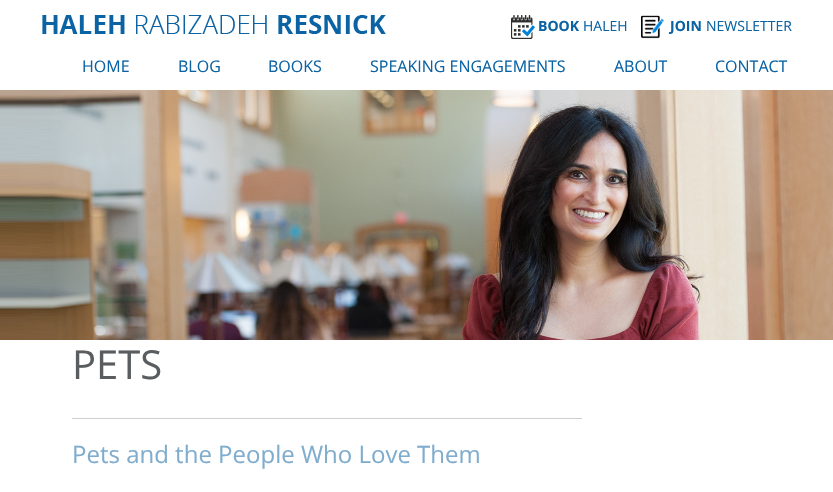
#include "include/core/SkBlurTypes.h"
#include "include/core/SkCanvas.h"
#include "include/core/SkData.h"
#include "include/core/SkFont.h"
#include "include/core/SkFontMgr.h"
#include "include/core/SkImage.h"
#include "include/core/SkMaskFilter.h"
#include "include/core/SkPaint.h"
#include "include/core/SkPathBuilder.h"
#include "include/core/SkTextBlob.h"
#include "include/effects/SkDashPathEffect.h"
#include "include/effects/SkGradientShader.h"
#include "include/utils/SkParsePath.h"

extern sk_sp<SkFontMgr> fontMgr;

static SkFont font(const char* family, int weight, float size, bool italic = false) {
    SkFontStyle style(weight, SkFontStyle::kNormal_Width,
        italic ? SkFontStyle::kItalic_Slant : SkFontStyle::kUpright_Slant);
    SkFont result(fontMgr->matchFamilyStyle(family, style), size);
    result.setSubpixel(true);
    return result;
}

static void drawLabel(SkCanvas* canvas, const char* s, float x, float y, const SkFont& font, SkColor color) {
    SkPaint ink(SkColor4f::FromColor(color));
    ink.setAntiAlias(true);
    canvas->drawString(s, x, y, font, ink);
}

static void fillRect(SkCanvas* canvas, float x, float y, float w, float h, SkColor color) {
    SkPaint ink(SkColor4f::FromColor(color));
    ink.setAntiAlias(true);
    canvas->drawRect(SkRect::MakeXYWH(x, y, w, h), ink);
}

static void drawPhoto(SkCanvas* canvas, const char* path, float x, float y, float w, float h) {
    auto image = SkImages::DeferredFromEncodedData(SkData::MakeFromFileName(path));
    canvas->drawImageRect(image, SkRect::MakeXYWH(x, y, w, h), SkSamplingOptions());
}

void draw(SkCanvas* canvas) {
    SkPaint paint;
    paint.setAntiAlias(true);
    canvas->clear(0xFFFFFFFF);
    drawPhoto(canvas, "assets/img1.png", 42, 15, 344, 19);
    drawPhoto(canvas, "assets/img2.png", 511, 15, 24, 24);
    SkFont font1 = font("Open Sans", 700, 14);
    drawLabel(canvas, "BOOK", 538, 31, font1, 0xFF0B63A4);
    SkFont font2 = font("Open Sans", 400, 14);
    drawLabel(canvas, "HALEH", 583, 31, font2, 0xFF0B63A4);
    drawPhoto(canvas, "assets/img3.png", 641, 15, 23, 24);
    drawLabel(canvas, "JOIN", 670, 31, font1, 0xFF0B63A4);
    drawLabel(canvas, "NEWSLETTER", 706, 31, font2, 0xFF0B63A4);
    SkFont font3 = font("Open Sans", 400, 16);
    drawLabel(canvas, "HOME", 82, 72, font3, 0xFF0B63A4);
    drawLabel(canvas, "BLOG", 178, 72, font3, 0xFF0B63A4);
    drawLabel(canvas, "BOOKS", 268, 72, font3, 0xFF0B63A4);
    drawLabel(canvas, "SPEAKING ENGAGEMENTS", 370, 72, font3, 0xFF0B63A4);
    drawLabel(canvas, "ABOUT", 614, 72, font3, 0xFF0B63A4);
    drawLabel(canvas, "CONTACT", 715, 72, font3, 0xFF0B63A4);
    drawPhoto(canvas, "assets/img4.png", 0, 90, 833, 250);
    SkFont font4 = font("Open Sans", 400, 40);
    drawLabel(canvas, "PETS", 72, 379, font4, 0xFF5A5D5F);
    fillRect(canvas, 72, 418, 510, 1, 0xFFCFCFCF);
    SkFont font5 = font("Open Sans", 400, 24);
    drawLabel(canvas, "Pets and the People Who Love Them", 72, 463, font5, 0xFF80ADCE);
}
